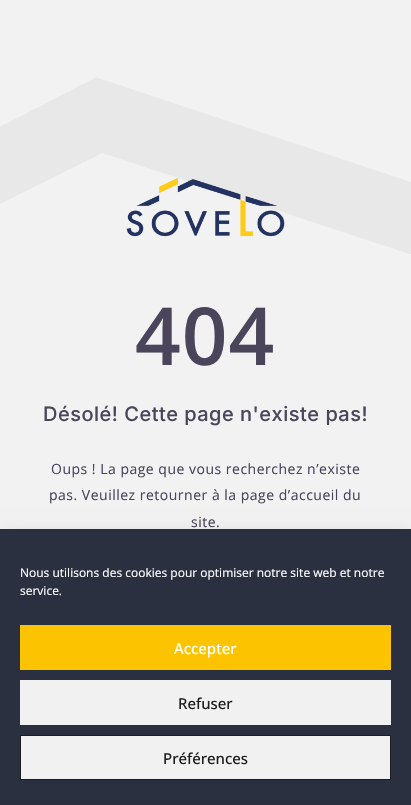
#include "include/core/SkBlurTypes.h"
#include "include/core/SkCanvas.h"
#include "include/core/SkData.h"
#include "include/core/SkFont.h"
#include "include/core/SkFontMgr.h"
#include "include/core/SkImage.h"
#include "include/core/SkMaskFilter.h"
#include "include/core/SkPaint.h"
#include "include/core/SkPathBuilder.h"
#include "include/core/SkTextBlob.h"
#include "include/effects/SkDashPathEffect.h"
#include "include/effects/SkGradientShader.h"
#include "include/utils/SkParsePath.h"

extern sk_sp<SkFontMgr> fontMgr;

static SkFont font(const char* family, int weight, float size, bool italic = false) {
    SkFontStyle style(weight, SkFontStyle::kNormal_Width,
        italic ? SkFontStyle::kItalic_Slant : SkFontStyle::kUpright_Slant);
    SkFont result(fontMgr->matchFamilyStyle(family, style), size);
    result.setSubpixel(true);
    return result;
}

static void drawLabel(SkCanvas* canvas, const char* s, float x, float y, const SkFont& font, SkColor color) {
    SkPaint ink(SkColor4f::FromColor(color));
    ink.setAntiAlias(true);
    canvas->drawString(s, x, y, font, ink);
}

static void drawTracked(SkCanvas* canvas, const char* s, float x, float y, const SkFont& font, const SkPaint& ink, float letter, float word) {
    std::vector<SkGlyphID> glyphs(font.countText(s, strlen(s), SkTextEncoding::kUTF8));
    std::vector<float> xs(glyphs.size());
    font.textToGlyphs(s, strlen(s), SkTextEncoding::kUTF8, glyphs);
    font.getXPos(glyphs, xs, x);
    float extra = 0;
    for (size_t i = 0; i < glyphs.size(); i++) {
        xs[i] += extra;
        extra += letter + word * (glyphs[i] == font.unicharToGlyph(' '));
    }
    canvas->drawTextBlob(SkTextBlob::MakeFromPosHGlyphs(glyphs, xs, y, font), 0, 0, ink);
}

static void fillRect(SkCanvas* canvas, float x, float y, float w, float h, SkColor color) {
    SkPaint ink(SkColor4f::FromColor(color));
    ink.setAntiAlias(true);
    canvas->drawRect(SkRect::MakeXYWH(x, y, w, h), ink);
}

static void drawPhoto(SkCanvas* canvas, const char* path, float x, float y, float w, float h) {
    auto image = SkImages::DeferredFromEncodedData(SkData::MakeFromFileName(path));
    canvas->drawImageRect(image, SkRect::MakeXYWH(x, y, w, h), SkSamplingOptions());
}

void draw(SkCanvas* canvas) {
    SkPaint paint;
    paint.setAntiAlias(true);
    canvas->clear(0xFFF2F2F2);
    drawPhoto(canvas, "assets/img1.png", 0, 77, 411, 177);
    drawPhoto(canvas, "assets/img2.png", 126, 177, 159, 60);
    SkFont font1 = font("Open Sans", 600, 80);
    paint.setColor(0xFF4A455A);
    drawTracked(canvas, "404", 135, 365, font1, paint, 1, 0);
    SkFont font2 = font("Inter", 500, 20);
    drawTracked(canvas, "Désolé! Cette page n'existe pas!", 43, 421, font2, paint, 0.5f, 0);
    SkFont font3 = font("Open Sans", 400, 14);
    drawTracked(canvas, "Oups ! La page que vous recherchez n’existe", 51, 474, font3, paint, 0.5f, 0);
    drawTracked(canvas, "pas. Veuillez retourner à la page d’accueil du", 49, 500, font3, paint, 0.5f, 0);
    drawTracked(canvas, "site.", 191, 527, font3, paint, 0.5f, 0);
    paint.setColor(0x30000000);
    paint.setMaskFilter(SkMaskFilter::MakeBlur(kNormal_SkBlurStyle, 10));
    canvas->drawRect(SkRect::MakeXYWH(0, 539, 411, 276), paint);
    paint.setMaskFilter(nullptr);
    fillRect(canvas, 0, 529, 411, 276, 0xFF2B3041);
    SkFont font4 = font("Open Sans", 400, 12);
    drawLabel(canvas, "Nous utilisons des cookies pour optimiser notre site web et notre", 20, 577, font4, 0xFFFFFFFF);
    drawLabel(canvas, "service.", 20, 595, font4, 0xFFFFFFFF);
    fillRect(canvas, 20, 625, 371, 45, 0xFFFCC400);
    SkFont font5 = font("Open Sans", 500, 15);
    drawLabel(canvas, "Accepter", 174, 654, font5, 0xFFFFFFFF);
    fillRect(canvas, 20, 680, 371, 45, 0xFFF1F1F1);
    drawLabel(canvas, "Refuser", 178, 709, font5, 0xFF1D1D1B);
    paint.setColor(0xFFF1F1F1);
    canvas->drawRect(SkRect::MakeXYWH(20.5f, 735.5f, 370, 44), paint);
    paint.setStroke(true);
    paint.setStrokeWidth(1);
    paint.setColor(0xFF1D1D1B);
    canvas->drawRect(SkRect::MakeXYWH(20.5f, 735.5f, 370, 44), paint);
    drawLabel(canvas, "Préférences", 163, 764, font5, 0xFF1D1D1B);
}
